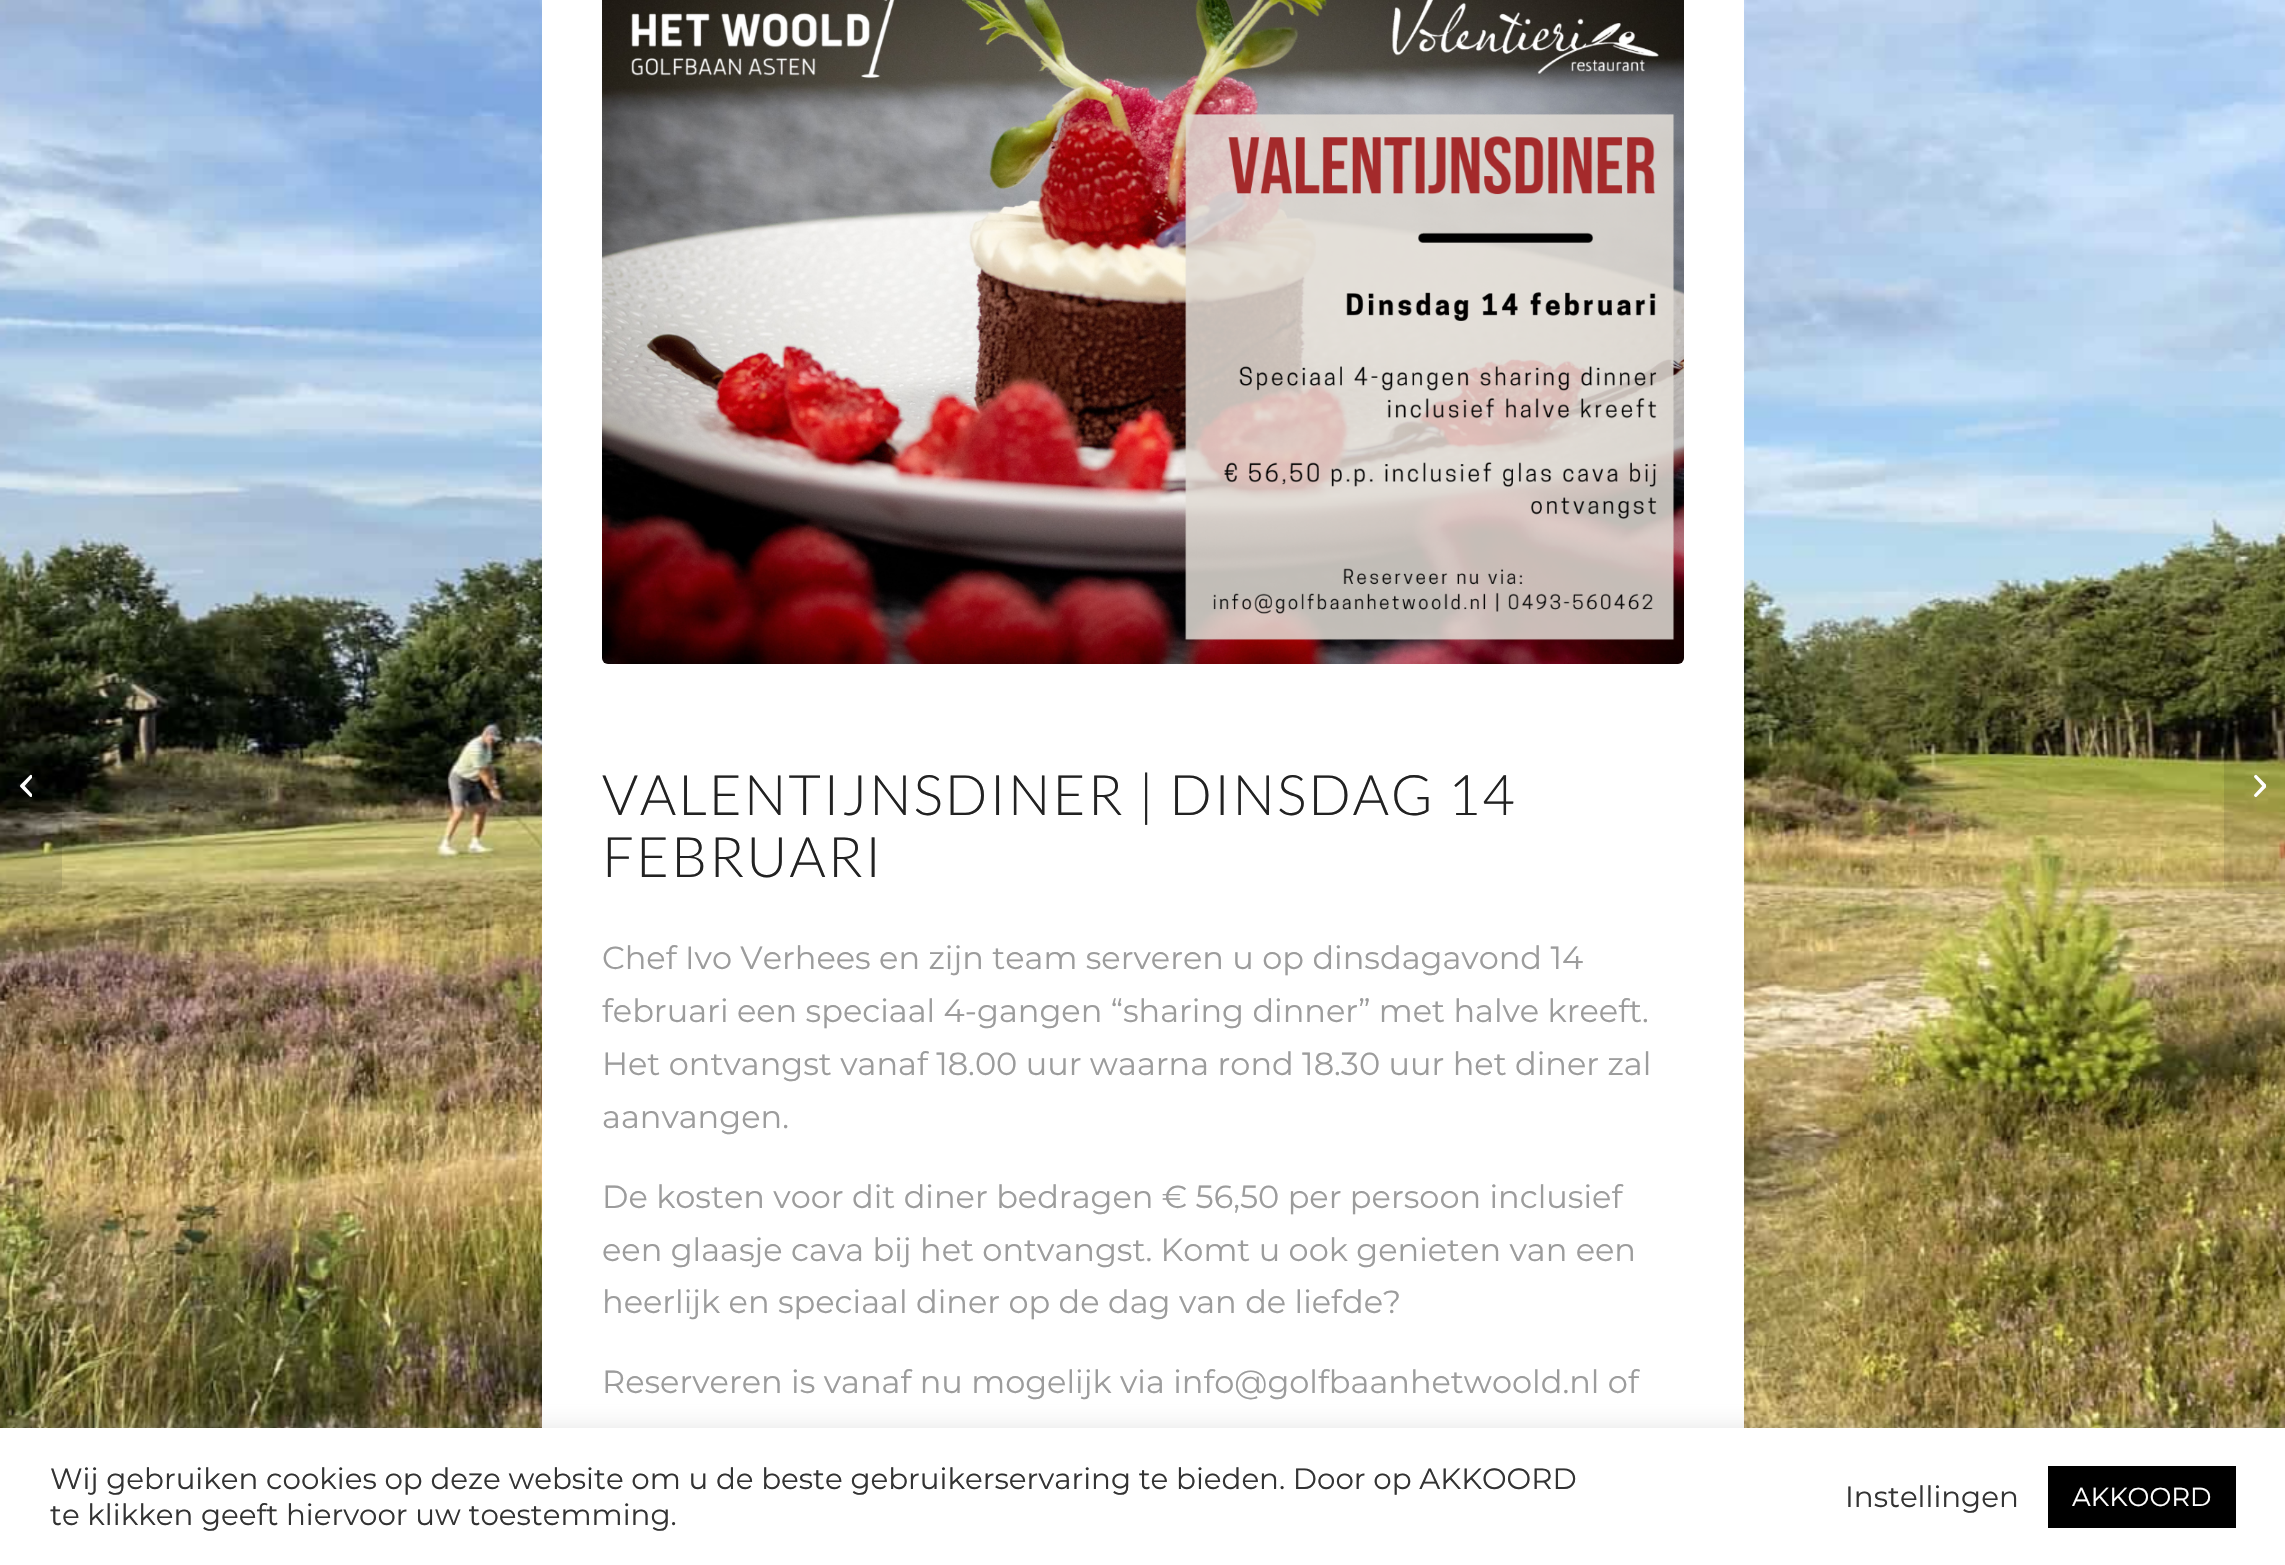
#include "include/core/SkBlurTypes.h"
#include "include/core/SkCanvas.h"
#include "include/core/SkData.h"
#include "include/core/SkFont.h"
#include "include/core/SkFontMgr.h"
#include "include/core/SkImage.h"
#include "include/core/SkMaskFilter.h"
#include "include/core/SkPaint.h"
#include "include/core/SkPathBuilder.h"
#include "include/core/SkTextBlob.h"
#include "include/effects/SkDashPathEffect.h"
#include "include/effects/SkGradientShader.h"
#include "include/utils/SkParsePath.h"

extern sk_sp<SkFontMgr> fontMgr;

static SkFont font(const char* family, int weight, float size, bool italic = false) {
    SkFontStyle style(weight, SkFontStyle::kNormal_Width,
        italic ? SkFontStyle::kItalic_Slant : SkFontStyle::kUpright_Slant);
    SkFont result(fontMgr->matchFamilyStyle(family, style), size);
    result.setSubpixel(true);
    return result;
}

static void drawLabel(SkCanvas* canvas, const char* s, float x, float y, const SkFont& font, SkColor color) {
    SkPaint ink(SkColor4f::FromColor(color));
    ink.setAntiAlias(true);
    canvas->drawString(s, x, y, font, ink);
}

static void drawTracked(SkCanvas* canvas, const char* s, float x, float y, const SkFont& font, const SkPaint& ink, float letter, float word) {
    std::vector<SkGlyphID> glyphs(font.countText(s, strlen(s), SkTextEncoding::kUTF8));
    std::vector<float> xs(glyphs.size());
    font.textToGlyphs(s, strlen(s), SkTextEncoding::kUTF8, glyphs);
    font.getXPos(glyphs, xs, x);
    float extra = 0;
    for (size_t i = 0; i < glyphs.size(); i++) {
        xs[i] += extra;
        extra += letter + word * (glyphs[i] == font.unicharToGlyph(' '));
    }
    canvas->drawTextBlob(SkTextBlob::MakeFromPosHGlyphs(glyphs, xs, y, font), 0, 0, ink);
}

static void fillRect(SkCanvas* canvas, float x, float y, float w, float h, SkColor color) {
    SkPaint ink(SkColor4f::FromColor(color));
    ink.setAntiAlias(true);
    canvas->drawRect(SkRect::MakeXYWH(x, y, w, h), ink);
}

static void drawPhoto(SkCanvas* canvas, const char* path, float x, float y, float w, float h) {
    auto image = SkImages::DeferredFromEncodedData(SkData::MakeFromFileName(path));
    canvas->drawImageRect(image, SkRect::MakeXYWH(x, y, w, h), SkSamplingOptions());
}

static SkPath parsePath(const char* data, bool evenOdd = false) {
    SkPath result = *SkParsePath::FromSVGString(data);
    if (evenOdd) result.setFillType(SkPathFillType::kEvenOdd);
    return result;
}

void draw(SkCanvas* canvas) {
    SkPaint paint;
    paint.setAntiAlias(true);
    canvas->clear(0xFFFFFFFF);
    drawPhoto(canvas, "assets/img2.png", 0, 0, 2285, 1428);
    paint.setColor(0x1A000000);
    canvas->drawPath(parsePath("M0 674H54C58.5 674 62 677.5 62 682V886C62 890.5 58.5 894 54 894H0Z"), paint);
    drawPhoto(canvas, "assets/img1.png", 20, 774, 12, 23);
    fillRect(canvas, 542, 0, 1202, 1428, 0xFFFFFFFF);
    drawPhoto(canvas, "assets/img3.png", 602, 0, 1082, 664);
    SkFont font1 = font("Lato", 300, 56);
    paint.setColor(0xFF222222);
    drawTracked(canvas, "VALENTIJNSDINER | DINSDAG 14", 602, 815, font1, paint, 2, 0);
    drawTracked(canvas, "FEBRUARI", 602, 877, font1, paint, 2, 0);
    SkFont font2 = font("Montserrat", 100, 32);
    drawLabel(canvas, "Chef Ivo Verhees en zijn team serveren u op dinsdagavond 14", 602, 969, font2, 0xFF9C9C9C);
    drawLabel(canvas, "februari een speciaal 4-gangen “sharing dinner” met halve kreeft.", 602, 1022, font2, 0xFF9C9C9C);
    drawLabel(canvas, "Het ontvangst vanaf 18.00 uur waarna rond 18.30 uur het diner zal", 602, 1075, font2, 0xFF9C9C9C);
    drawLabel(canvas, "aanvangen.", 602, 1128, font2, 0xFF9C9C9C);
    drawLabel(canvas, "De kosten voor dit diner bedragen € 56,50 per persoon inclusief", 602, 1208, font2, 0xFF9C9C9C);
    drawLabel(canvas, "een glaasje cava bij het ontvangst. Komt u ook genieten van een", 602, 1261, font2, 0xFF9C9C9C);
    drawLabel(canvas, "heerlijk en speciaal diner op de dag van de liefde?", 602, 1313, font2, 0xFF9C9C9C);
    drawLabel(canvas, "Reserveren is vanaf nu mogelijk via info@golfbaanhetwoold.nl of", 602, 1393, font2, 0xFF9C9C9C);
    paint.setColor(0x1A000000);
    canvas->drawPath(parsePath("M2232 674H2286V894H2232C2227.5 894 2224 890.5 2224 886V682C2224 677.5 2227.5 674 2232 674Z"), paint);
    drawPhoto(canvas, "assets/img4.png", 2254, 774, 12, 24);
    paint.setColor(0x4DACABAB);
    paint.setMaskFilter(SkMaskFilter::MakeBlur(kNormal_SkBlurStyle, 10));
    canvas->drawRect(SkRect::MakeXYWH(0, 1426, 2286, 138), paint);
    paint.setMaskFilter(nullptr);
    fillRect(canvas, 0, 1428, 2285, 137, 0xFFFFFFFF);
    SkFont font3 = font("Montserrat", 100, 29.33f);
    drawLabel(canvas, "Wij gebruiken cookies op deze website om u de beste gebruikerservaring te bieden. Door op AKKOORD", 50, 1489, font3, 0xFF333333);
    drawLabel(canvas, "te klikken geeft hiervoor uw toestemming.", 50, 1525, font3, 0xFF333333);
    drawLabel(canvas, "Instellingen", 1845, 1507, font3, 0xFF333333);
    fillRect(canvas, 2048, 1466, 188, 62, 0xFF000000);
    SkFont font4 = font("Montserrat", 100, 26);
    drawLabel(canvas, "AKKOORD", 2072, 1506, font4, 0xFFFFFFFF);
}
